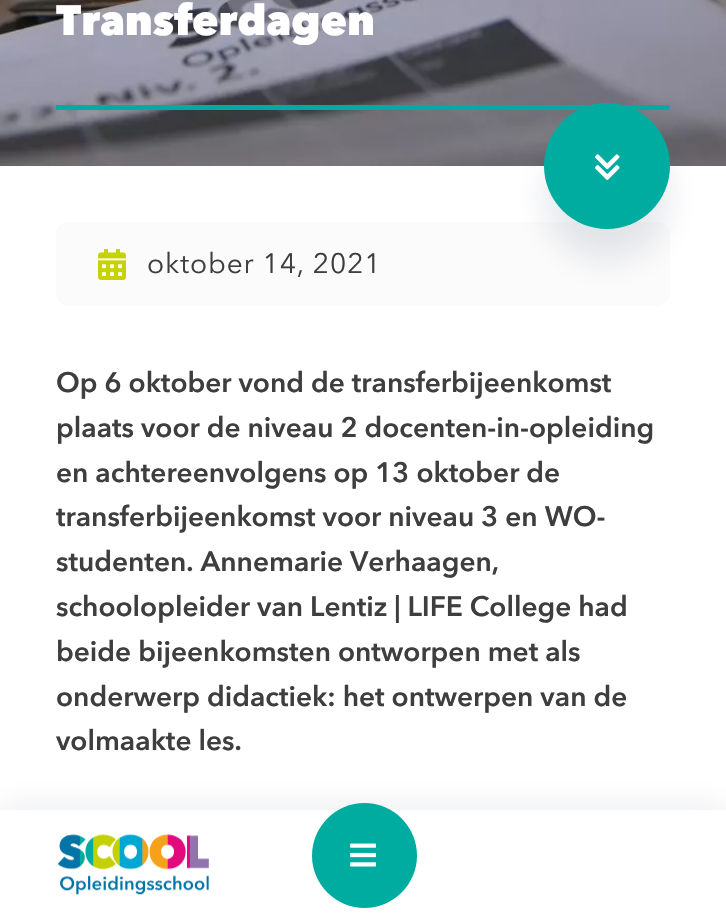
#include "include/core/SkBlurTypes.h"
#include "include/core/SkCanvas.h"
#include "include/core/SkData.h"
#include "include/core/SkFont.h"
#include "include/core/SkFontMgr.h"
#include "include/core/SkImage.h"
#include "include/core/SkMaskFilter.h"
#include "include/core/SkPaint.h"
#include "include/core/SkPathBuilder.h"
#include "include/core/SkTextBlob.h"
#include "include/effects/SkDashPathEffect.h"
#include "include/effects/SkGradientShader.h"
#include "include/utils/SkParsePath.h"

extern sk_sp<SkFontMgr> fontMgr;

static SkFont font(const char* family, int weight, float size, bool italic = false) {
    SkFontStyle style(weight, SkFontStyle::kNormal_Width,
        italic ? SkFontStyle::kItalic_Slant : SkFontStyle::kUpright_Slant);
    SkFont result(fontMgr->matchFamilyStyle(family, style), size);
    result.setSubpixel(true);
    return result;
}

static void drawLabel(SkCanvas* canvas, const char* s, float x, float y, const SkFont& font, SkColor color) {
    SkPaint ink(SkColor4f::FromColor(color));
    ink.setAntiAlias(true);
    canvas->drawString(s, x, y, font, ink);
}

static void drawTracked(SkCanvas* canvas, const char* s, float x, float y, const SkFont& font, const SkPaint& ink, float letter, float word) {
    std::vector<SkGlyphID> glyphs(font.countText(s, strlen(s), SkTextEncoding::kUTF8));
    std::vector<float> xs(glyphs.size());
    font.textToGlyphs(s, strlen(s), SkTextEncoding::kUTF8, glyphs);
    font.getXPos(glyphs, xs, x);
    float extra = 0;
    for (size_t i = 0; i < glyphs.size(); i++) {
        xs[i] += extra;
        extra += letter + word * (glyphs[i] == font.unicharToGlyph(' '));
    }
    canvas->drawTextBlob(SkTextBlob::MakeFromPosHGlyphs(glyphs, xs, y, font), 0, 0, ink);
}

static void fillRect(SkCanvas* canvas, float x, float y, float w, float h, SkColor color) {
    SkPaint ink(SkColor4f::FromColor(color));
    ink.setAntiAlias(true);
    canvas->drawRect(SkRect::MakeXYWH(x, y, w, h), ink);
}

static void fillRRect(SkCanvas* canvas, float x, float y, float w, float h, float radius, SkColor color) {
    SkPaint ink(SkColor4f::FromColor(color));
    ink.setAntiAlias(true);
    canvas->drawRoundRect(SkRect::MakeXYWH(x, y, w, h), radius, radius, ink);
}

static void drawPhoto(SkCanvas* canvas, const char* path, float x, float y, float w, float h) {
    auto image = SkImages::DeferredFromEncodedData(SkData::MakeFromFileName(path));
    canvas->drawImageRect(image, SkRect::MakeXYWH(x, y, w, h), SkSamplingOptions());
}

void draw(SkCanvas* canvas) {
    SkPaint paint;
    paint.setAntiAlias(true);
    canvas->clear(0xFFFFFFFF);
    drawPhoto(canvas, "assets/img1.png", 0, 0, 726, 166);
    fillRect(canvas, 56, 105, 614, 5, 0xFF00AB9F);
    SkFont font1 = font("Avenir Next", 900, 42);
    drawLabel(canvas, "Transferdagen", 56, 35, font1, 0xFFFFFFFF);
    fillRRect(canvas, 56, 222, 614, 84, 14, 0xFFFBFBFB);
    paint.setColor(0x1A0A1F44);
    paint.setMaskFilter(SkMaskFilter::MakeBlur(kNormal_SkBlurStyle, 16));
    canvas->drawRoundRect(SkRect::MakeXYWH(544, 135, 126, 126), 63, 63, paint);
    paint.setMaskFilter(nullptr);
    paint.setColor(0xFF00AB9F);
    canvas->drawCircle(607, 166, 63, paint);
    drawPhoto(canvas, "assets/img2.png", 595, 154, 25, 26);
    drawPhoto(canvas, "assets/img3.png", 98, 249, 28, 31);
    SkFont font2 = font("Avenir Next", 400, 28);
    paint.setColor(0xFF3E3E3E);
    drawTracked(canvas, "oktober 14, 2021", 147, 273, font2, paint, 0.9f, 0);
    SkFont font3 = font("Avenir Next", 600, 28);
    drawLabel(canvas, "Op 6 oktober vond de transferbijeenkomst", 56, 392, font3, 0xFF3E3E3E);
    drawLabel(canvas, "plaats voor de niveau 2 docenten-in-opleiding", 56, 437, font3, 0xFF3E3E3E);
    drawLabel(canvas, "en achtereenvolgens op 13 oktober de", 56, 482, font3, 0xFF3E3E3E);
    drawLabel(canvas, "transferbijeenkomst voor niveau 3 en WO-", 56, 526, font3, 0xFF3E3E3E);
    drawLabel(canvas, "studenten. Annemarie Verhaagen,", 56, 571, font3, 0xFF3E3E3E);
    drawLabel(canvas, "schoolopleider van Lentiz | LIFE College had", 56, 616, font3, 0xFF3E3E3E);
    drawLabel(canvas, "beide bijeenkomsten ontworpen met als", 56, 661, font3, 0xFF3E3E3E);
    drawLabel(canvas, "onderwerp didactiek: het ontwerpen van de", 56, 706, font3, 0xFF3E3E3E);
    drawLabel(canvas, "volmaakte les.", 56, 750, font3, 0xFF3E3E3E);
    paint.setColor(0x1A0A1F44);
    paint.setMaskFilter(SkMaskFilter::MakeBlur(kNormal_SkBlurStyle, 16));
    canvas->drawRect(SkRect::MakeXYWH(0, 810, 726, 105), paint);
    paint.setMaskFilter(nullptr);
    fillRect(canvas, 0, 810, 726, 104, 0xFFFFFFFF);
    drawPhoto(canvas, "assets/img4.png", 57, 834, 152, 61);
    paint.setColor(0xFF00AB9F);
    canvas->drawCircle(364.5f, 855.5f, 52.5f, paint);
    drawPhoto(canvas, "assets/img5.png", 350, 843, 26, 24);
}
